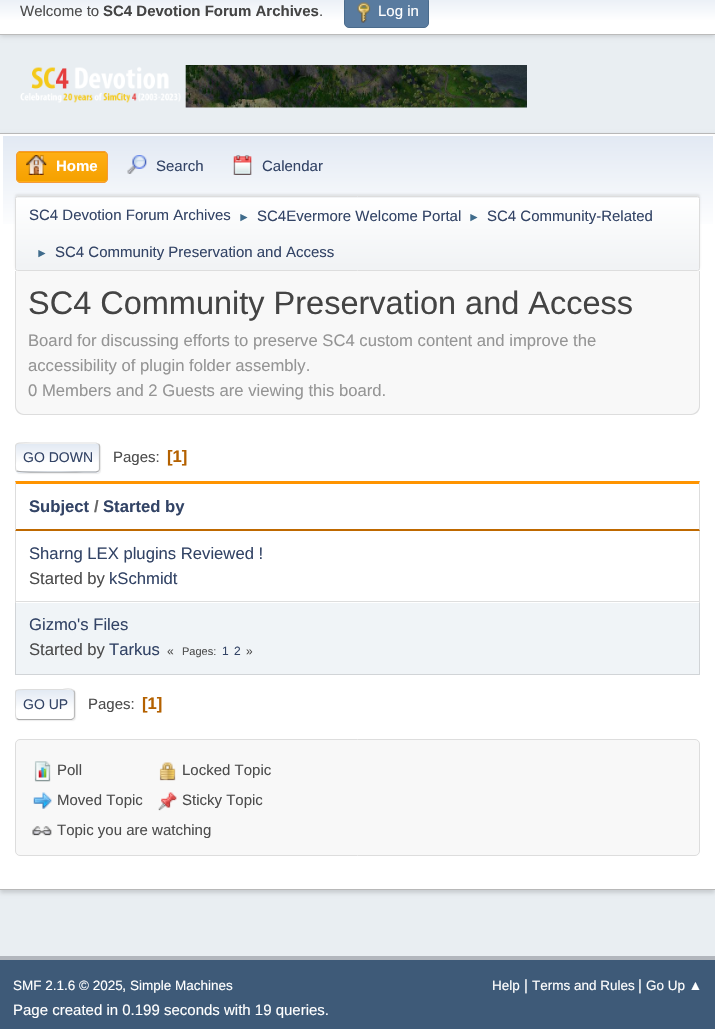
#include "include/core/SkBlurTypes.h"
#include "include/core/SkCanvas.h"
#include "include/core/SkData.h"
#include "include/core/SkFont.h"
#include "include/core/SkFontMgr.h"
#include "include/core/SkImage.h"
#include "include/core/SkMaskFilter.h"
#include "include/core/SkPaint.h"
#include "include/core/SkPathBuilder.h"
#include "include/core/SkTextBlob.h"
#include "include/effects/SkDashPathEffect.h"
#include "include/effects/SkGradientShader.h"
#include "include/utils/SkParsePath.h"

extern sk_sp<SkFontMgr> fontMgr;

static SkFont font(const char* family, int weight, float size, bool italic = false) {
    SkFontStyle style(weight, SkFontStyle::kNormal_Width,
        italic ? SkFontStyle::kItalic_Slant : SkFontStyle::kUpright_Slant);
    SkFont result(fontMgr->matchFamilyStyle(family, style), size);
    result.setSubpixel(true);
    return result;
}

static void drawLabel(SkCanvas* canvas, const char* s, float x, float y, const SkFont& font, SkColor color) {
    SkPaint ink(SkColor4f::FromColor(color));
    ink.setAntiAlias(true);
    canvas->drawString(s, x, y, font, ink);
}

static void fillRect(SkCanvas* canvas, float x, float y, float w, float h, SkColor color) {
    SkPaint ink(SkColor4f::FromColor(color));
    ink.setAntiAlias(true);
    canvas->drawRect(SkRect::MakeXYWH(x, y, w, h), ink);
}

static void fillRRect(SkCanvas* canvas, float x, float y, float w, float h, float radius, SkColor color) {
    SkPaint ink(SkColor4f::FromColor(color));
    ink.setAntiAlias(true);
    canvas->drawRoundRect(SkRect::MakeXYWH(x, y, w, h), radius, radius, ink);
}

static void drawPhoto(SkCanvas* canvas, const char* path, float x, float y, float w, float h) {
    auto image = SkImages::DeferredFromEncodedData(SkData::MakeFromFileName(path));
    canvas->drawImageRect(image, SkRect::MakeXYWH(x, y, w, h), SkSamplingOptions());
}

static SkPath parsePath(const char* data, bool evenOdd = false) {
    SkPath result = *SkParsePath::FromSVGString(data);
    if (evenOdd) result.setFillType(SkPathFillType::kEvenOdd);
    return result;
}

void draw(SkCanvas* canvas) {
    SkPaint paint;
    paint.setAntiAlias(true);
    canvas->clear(0xFFE9EEF2);
    paint.setColor(0x29000000);
    paint.setMaskFilter(SkMaskFilter::MakeBlur(kNormal_SkBlurStyle, 2.5f));
    canvas->drawRect(SkRect::MakeXYWH(0, -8, 715, 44), paint);
    paint.setMaskFilter(nullptr);
    {
        const SkColor colors[] = {0xFFE2E9F3, 0xFFFFFFFF};
        const float stops[] = {0, 0.7f};
        const SkPoint ends[] = {{358, -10}, {358, 34}};
        paint.setShader(SkGradientShader::MakeLinear(ends, colors, stops, 2, SkTileMode::kClamp));
        paint.setAlpha(255);
    }
    canvas->drawRect(SkRect::MakeXYWH(0, 0, 715, 34), paint);
    fillRect(canvas, 0, 34, 715, 1, 0xFFBBBBBB);
    SkFont font1 = font("Liberation Sans", 400, 15);
    drawLabel(canvas, "Welcome to", 20, 16, font1, 0xFF4D4D4D);
    SkFont font2 = font("Liberation Sans", 700, 15);
    drawLabel(canvas, "SC4 Devotion Forum Archives", 103, 16, font2, 0xFF444444);
    drawLabel(canvas, ".", 319, 16, font1, 0xFF4D4D4D);
    paint.setShader(nullptr);
    paint.setColor(0xFF597B9F);
    canvas->drawRoundRect(SkRect::MakeXYWH(344.5f, -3.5f, 84, 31), 4.5f, 4.5f, paint);
    paint.setStroke(true);
    paint.setStrokeWidth(1);
    paint.setColor(0xFF4A6B8C);
    canvas->drawRoundRect(SkRect::MakeXYWH(344.5f, -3.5f, 84, 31), 4.5f, 4.5f, paint);
    drawPhoto(canvas, "assets/img1.png", 357, 2, 14, 21);
    drawLabel(canvas, "Log in", 378, 16, font1, 0xFFFFFFFF);
    drawPhoto(canvas, "assets/img2.png", 20, 65, 507, 43);
    paint.setStroke(false);
    paint.setColor(0x24000000);
    paint.setMaskFilter(SkMaskFilter::MakeBlur(kNormal_SkBlurStyle, 2));
    canvas->drawRect(SkRect::MakeXYWH(0, 135, 715, 758), paint);
    paint.setMaskFilter(nullptr);
    fillRect(canvas, 0, 134, 715, 755, 0xFFFFFFFF);
    fillRect(canvas, 0, 133, 715, 1, 0xFFB8B8B8);
    fillRect(canvas, 0, 889, 715, 1, 0xFFB8B8B8);
    {
        const SkColor colors[] = {0xFFE2E9F3, 0xFFFFFFFF};
        const float stops[] = {0, 0.7f};
        const SkPoint ends[] = {{358, 136}, {358, 274}};
        paint.setShader(SkGradientShader::MakeLinear(ends, colors, stops, 2, SkTileMode::kClamp));
        paint.setAlpha(255);
    }
    canvas->drawRect(SkRect::MakeXYWH(3, 136, 710, 88), paint);
    canvas->save();
    canvas->clipPath(parsePath("M21 151H103C106 151 108 153 108 156V178C108 181 106 183 103 183H21C18 183 16 181 16 178V156C16 153 18 151 21 151Z"), true);
    {
        const SkColor colors[] = {0xFFFFAE14, 0xFFF5A100};
        const float stops[] = {0, 1};
        const SkPoint ends[] = {{62, 124}, {62, 153}};
        paint.setShader(SkGradientShader::MakeLinear(ends, colors, stops, 2, SkTileMode::kClamp));
        paint.setAlpha(255);
    }
    canvas->drawRect(SkRect::MakeXYWH(16, 151, 92, 2), paint);
    {
        const SkColor colors[] = {0xFFFFAE14, 0xFFF5A100};
        const float stops[] = {0, 1};
        const SkPoint ends[] = {{62, 153}, {62, 181}};
        paint.setShader(SkGradientShader::MakeLinear(ends, colors, stops, 2, SkTileMode::kClamp));
        paint.setAlpha(255);
    }
    canvas->drawRect(SkRect::MakeXYWH(16, 153, 92, 28), paint);
    {
        const SkColor colors[] = {0xFFFFAE14, 0xFFF5A100};
        const float stops[] = {0, 1};
        const SkPoint ends[] = {{62, 181}, {62, 210}};
        paint.setShader(SkGradientShader::MakeLinear(ends, colors, stops, 2, SkTileMode::kClamp));
        paint.setAlpha(255);
    }
    canvas->drawRect(SkRect::MakeXYWH(16, 181, 92, 2), paint);
    canvas->restore();
    paint.setStroke(true);
    paint.setShader(nullptr);
    paint.setColor(0xFFF49A3A);
    canvas->drawRoundRect(SkRect::MakeXYWH(16.5f, 151.5f, 91, 31), 4.5f, 4.5f, paint);
    drawPhoto(canvas, "assets/img3.png", 26, 155, 21, 20);
    drawLabel(canvas, "Home", 56, 171, font2, 0xFFFFFFFF);
    drawPhoto(canvas, "assets/img4.png", 127, 155, 20, 19);
    drawLabel(canvas, "Search", 156, 171, font1, 0xFF334466);
    drawPhoto(canvas, "assets/img5.png", 233, 155, 19, 20);
    drawLabel(canvas, "Calendar", 262, 171, font1, 0xFF334466);
    paint.setStroke(false);
    paint.setColor(0x14000000);
    paint.setMaskFilter(SkMaskFilter::MakeBlur(kNormal_SkBlurStyle, 1));
    canvas->drawRoundRect(SkRect::MakeXYWH(15, 194, 685, 75), 2.5f, 2.5f, paint);
    paint.setMaskFilter(nullptr);
    canvas->save();
    canvas->clipPath(parsePath("M17.5 196H697.5C699 196 700 197 700 198.5V268.5C700 270 699 271 697.5 271H17.5C16 271 15 270 15 268.5V198.5C15 197 16 196 17.5 196Z"), true);
    {
        const SkColor colors[] = {0xFFFFFFFF, 0xFFF1F3F5};
        const float stops[] = {0, 0.95f};
        const SkPoint ends[] = {{358, 125}, {358, 198}};
        paint.setShader(SkGradientShader::MakeLinear(ends, colors, stops, 2, SkTileMode::kClamp));
        paint.setAlpha(255);
    }
    canvas->drawRect(SkRect::MakeXYWH(15, 196, 685, 2), paint);
    canvas->restore();
    {
        const SkColor colors[] = {0xFFFFFFFF, 0xFFF1F3F5};
        const float stops[] = {0, 0.95f};
        const SkPoint ends[] = {{358, 197}, {358, 270}};
        paint.setShader(SkGradientShader::MakeLinear(ends, colors, stops, 2, SkTileMode::kClamp));
        paint.setAlpha(255);
    }
    canvas->drawRect(SkRect::MakeXYWH(15, 198, 685, 72), paint);
    paint.setStroke(true);
    paint.setShader(nullptr);
    paint.setColor(0xFFDDDDDD);
    canvas->drawRoundRect(SkRect::MakeXYWH(15.5f, 196.5f, 684, 74), 2, 2, paint);
    drawLabel(canvas, "SC4 Devotion Forum Archives", 29, 220, font1, 0xFF334466);
    SkFont font3 = font("Liberation Sans", 400, 12);
    drawLabel(canvas, "►", 238, 221, font3, 0xFF3F6B8C);
    drawLabel(canvas, "SC4Evermore Welcome Portal", 257, 221, font1, 0xFF334466);
    drawLabel(canvas, "►", 468, 221, font3, 0xFF3F6B8C);
    drawLabel(canvas, "SC4 Community-Related", 487, 221, font1, 0xFF334466);
    drawLabel(canvas, "►", 36, 257, font3, 0xFF3F6B8C);
    drawLabel(canvas, "SC4 Community Preservation and Access", 55, 257, font1, 0xFF334466);
    paint.setStroke(false);
    paint.setColor(0xFFF8F8F8);
    canvas->drawPath(parsePath("M15 271H700V406C700 411 696 415 691 415H24C19 415 15 411 15 406Z"), paint);
    paint.setColor(0xFFDDDDDD);
    canvas->drawPath(parsePath("M15 271H700V406C700 411 696 415 691 415H24C19 415 15 411 15 406ZM16 271H699V406C699 410 695 414 691 414H24C20 414 16 410 16 406Z", true), paint);
    SkFont font4 = font("Liberation Sans", 400, 32.5f);
    drawLabel(canvas, "SC4 Community Preservation and Access", 28, 314, font4, 0xFF444444);
    SkFont font5 = font("Liberation Sans", 400, 16.65f);
    drawLabel(canvas, "Board for discussing efforts to preserve SC4 custom content and improve the", 28, 346, font5, 0xFF959595);
    drawLabel(canvas, "accessibility of plugin folder assembly.", 28, 371, font5, 0xFF959595);
    drawLabel(canvas, "0 Members and 2 Guests are viewing this board.", 28, 396, font5, 0xFF959595);
    paint.setColor(0x91DDDDDD);
    paint.setMaskFilter(SkMaskFilter::MakeBlur(kNormal_SkBlurStyle, 0.5f));
    canvas->drawRoundRect(SkRect::MakeXYWH(16, 444, 85, 30), 4, 4, paint);
    paint.setMaskFilter(nullptr);
    fillRRect(canvas, 15, 443, 85, 30, 4, 0xFFFFFFFF);
    canvas->save();
    canvas->clipPath(parsePath("M19 443H96C98 443 100 445 100 447V469C100 471 98 473 96 473H19C17 473 15 471 15 469V447C15 445 17 443 19 443Z"), true);
    {
        const SkColor colors[] = {0xFFE2E9F3, 0xFFFFFFFF};
        const float stops[] = {0, 0.7f};
        const SkPoint ends[] = {{58, 444}, {58, 471}};
        paint.setShader(SkGradientShader::MakeLinear(ends, colors, stops, 2, SkTileMode::kClamp));
        paint.setAlpha(255);
    }
    canvas->drawRect(SkRect::MakeXYWH(15, 444, 85, 27), paint);
    {
        const SkColor colors[] = {0xFFE2E9F3, 0xFFFFFFFF};
        const float stops[] = {0, 0.7f};
        const SkPoint ends[] = {{58, 471}, {58, 499}};
        paint.setShader(SkGradientShader::MakeLinear(ends, colors, stops, 2, SkTileMode::kClamp));
        paint.setAlpha(255);
    }
    canvas->drawRect(SkRect::MakeXYWH(15, 471, 85, 2), paint);
    canvas->restore();
    paint.setStroke(true);
    paint.setStrokeWidth(1.2f);
    paint.setShader(nullptr);
    paint.setColor(0xFFBBBBBB);
    canvas->drawPath(parsePath("M98.5 444C99 444.5 99.5 445.5 99.5 446V469C99.5 469.5 99 470.5 98.5 471"), paint);
    paint.setColor(0xFFAAAAAA);
    canvas->drawPath(parsePath("M98.5 471L96 472H83.5C76 472 19 473 17 471H16.5"), paint);
    canvas->save();
    canvas->clipRect(SkRect::MakeXYWH(15, 434, 685, 47));
    paint.setColor(0xFFDDDDDD);
    canvas->drawPath(parsePath("M16.5 471C14.5 468.5 15.5 464 15.5 461C15.5 441 11.5 443 31.5 443H96L98.5 444"), paint);
    canvas->restore();
    SkFont font6 = font("Liberation Sans", 400, 14);
    drawLabel(canvas, "GO DOWN", 23, 462, font6, 0xFF334466);
    drawLabel(canvas, "Pages:", 113, 462, font1, 0xFF4D4D4D);
    SkFont font7 = font("Liberation Sans", 700, 16.65f);
    drawLabel(canvas, "[1]", 167, 462, font7, 0xFFB46100);
    paint.setStroke(false);
    paint.setColor(0xFFFF9400);
    canvas->drawPath(parsePath("M15 481H700L699 484H16Z"), paint);
    paint.setColor(0xFFDDDDDD);
    canvas->drawPath(parsePath("M700 481V531L699 529V484Z"), paint);
    paint.setColor(0xFFBF6900);
    canvas->drawPath(parsePath("M700 531H15L16 529H699Z"), paint);
    paint.setColor(0xFFDDDDDD);
    canvas->drawPath(parsePath("M15 531V481L16 484V529Z"), paint);
    drawLabel(canvas, "Subject", 29, 512, font7, 0xFF334466);
    drawLabel(canvas, "/", 94, 512, font7, 0xFF666666);
    drawLabel(canvas, "Started by", 103, 512, font7, 0xFF334466);
    paint.setColor(0xFFDCDCDC);
    canvas->drawPath(parsePath("M700 531V602L699 601V531Z"), paint);
    paint.setColor(0x21000000);
    canvas->drawPath(parsePath("M700 602H15L16 601H699Z"), paint);
    canvas->drawPath(parsePath("M15 602V531H16V601Z"), paint);
    drawLabel(canvas, "Sharng LEX plugins Reviewed !", 29, 559, font5, 0xFF334466);
    drawLabel(canvas, "Started by", 29, 584, font5, 0xFF4D4D4D);
    drawLabel(canvas, "kSchmidt", 109, 584, font5, 0xFF334466);
    fillRect(canvas, 15, 603, 685, 72, 0xFFF0F4F7);
    canvas->drawPath(parsePath("M700 602V675L699 674V602Z"), paint);
    canvas->drawPath(parsePath("M700 675H15L16 674H699Z"), paint);
    canvas->drawPath(parsePath("M15 675V602H16V674Z"), paint);
    drawLabel(canvas, "Gizmo's Files", 29, 630, font5, 0xFF334466);
    drawLabel(canvas, "Started by", 29, 655, font5, 0xFF4D4D4D);
    drawLabel(canvas, "Tarkus", 109, 655, font5, 0xFF334466);
    drawLabel(canvas, "«", 167, 655, font3, 0xFF4D4D4D);
    SkFont font8 = font("Liberation Sans", 400, 11);
    drawLabel(canvas, "Pages:", 182, 655, font8, 0xFF4D4D4D);
    drawLabel(canvas, "1", 222, 655, font3, 0xFF334466);
    drawLabel(canvas, "2", 234, 655, font3, 0xFF334466);
    drawLabel(canvas, "»", 246, 655, font3, 0xFF4D4D4D);
    paint.setColor(0x91DDDDDD);
    paint.setMaskFilter(SkMaskFilter::MakeBlur(kNormal_SkBlurStyle, 0.5f));
    canvas->drawRoundRect(SkRect::MakeXYWH(16, 690, 60, 31), 4, 4, paint);
    paint.setMaskFilter(nullptr);
    fillRRect(canvas, 15, 689, 60, 31, 4, 0xFFFFFFFF);
    canvas->save();
    canvas->clipPath(parsePath("M19 689H71C73 689 75 691 75 693V716C75 718 73 720 71 720H19C17 720 15 718 15 716V693C15 691 17 689 19 689Z"), true);
    {
        const SkColor colors[] = {0xFFE2E9F3, 0xFFFFFFFF};
        const float stops[] = {0, 0.7f};
        const SkPoint ends[] = {{45, 690}, {45, 719}};
        paint.setShader(SkGradientShader::MakeLinear(ends, colors, stops, 2, SkTileMode::kClamp));
        paint.setAlpha(255);
    }
    canvas->drawRect(SkRect::MakeXYWH(15, 690, 60, 29), paint);
    canvas->restore();
    paint.setStroke(true);
    paint.setShader(nullptr);
    paint.setColor(0xFFBBBBBB);
    canvas->drawPath(parsePath("M73.5 690.5C74 691 74.5 691.5 74.5 692.5V716C74.5 717 74 718 73.5 718.5"), paint);
    paint.setColor(0xFFAAAAAA);
    canvas->drawPath(parsePath("M73.5 718.5L71.5 719.5H18.5L16.5 718.5"), paint);
    canvas->save();
    canvas->clipRect(SkRect::MakeXYWH(15, 680, 685, 49));
    paint.setColor(0xFFDDDDDD);
    canvas->drawPath(parsePath("M16.5 718.5C14.5 716.5 15.5 707 15.5 704.5C15.5 688.5 12.5 689.5 27.5 689.5H62.5C62.5 689.5 71 688 73.5 690.5"), paint);
    canvas->restore();
    drawLabel(canvas, "GO UP", 23, 709, font6, 0xFF334466);
    drawLabel(canvas, "Pages:", 88, 709, font1, 0xFF4D4D4D);
    drawLabel(canvas, "[1]", 142, 709, font7, 0xFFB46100);
    paint.setStroke(false);
    paint.setColor(0xFFF8F8F8);
    canvas->drawRoundRect(SkRect::MakeXYWH(15.5f, 739.5f, 684, 116), 4.5f, 4.5f, paint);
    paint.setStroke(true);
    paint.setStrokeWidth(1);
    paint.setColor(0xFFDDDDDD);
    canvas->drawRoundRect(SkRect::MakeXYWH(15.5f, 739.5f, 684, 116), 4.5f, 4.5f, paint);
    drawPhoto(canvas, "assets/img6.png", 34, 761, 17, 21);
    drawLabel(canvas, "Poll", 57, 775, font1, 0xFF4D4D4D);
    drawPhoto(canvas, "assets/img7.png", 33, 792, 19, 17);
    drawLabel(canvas, "Moved Topic", 57, 805, font1, 0xFF4D4D4D);
    drawPhoto(canvas, "assets/img8.png", 159, 762, 17, 19);
    drawLabel(canvas, "Locked Topic", 182, 775, font1, 0xFF4D4D4D);
    drawPhoto(canvas, "assets/img9.png", 158, 792, 19, 19);
    drawLabel(canvas, "Sticky Topic", 182, 805, font1, 0xFF4D4D4D);
    drawPhoto(canvas, "assets/img10.png", 32, 826, 20, 10);
    drawLabel(canvas, "Topic you are watching", 57, 835, font1, 0xFF4D4D4D);
    fillRect(canvas, 0, 960, 715, 69, 0xFF3E5A78);
    fillRect(canvas, 0, 956, 715, 4, 0xFFB2B6BD);
    SkFont font9 = font("Liberation Sans", 400, 13.5f);
    drawLabel(canvas, "SMF 2.1.6 © 2025", 13, 990, font9, 0xFFFFFFFF);
    drawLabel(canvas, ",", 122, 990, font1, 0xFFFFFFFF);
    drawLabel(canvas, "Simple Machines", 130, 990, font9, 0xFFFFFFFF);
    drawLabel(canvas, "Help", 492, 990, font9, 0xFFFFFFFF);
    drawLabel(canvas, "|", 524, 990, font1, 0xFFFFFFFF);
    drawLabel(canvas, "Terms and Rules", 532, 990, font9, 0xFFFFFFFF);
    drawLabel(canvas, "|", 638, 990, font1, 0xFFFFFFFF);
    drawLabel(canvas, "Go Up ▲", 646, 990, font9, 0xFFFFFFFF);
    drawLabel(canvas, "Page created in 0.199 seconds with 19 queries.", 13, 1015, font1, 0xFFFFFFFF);
}
